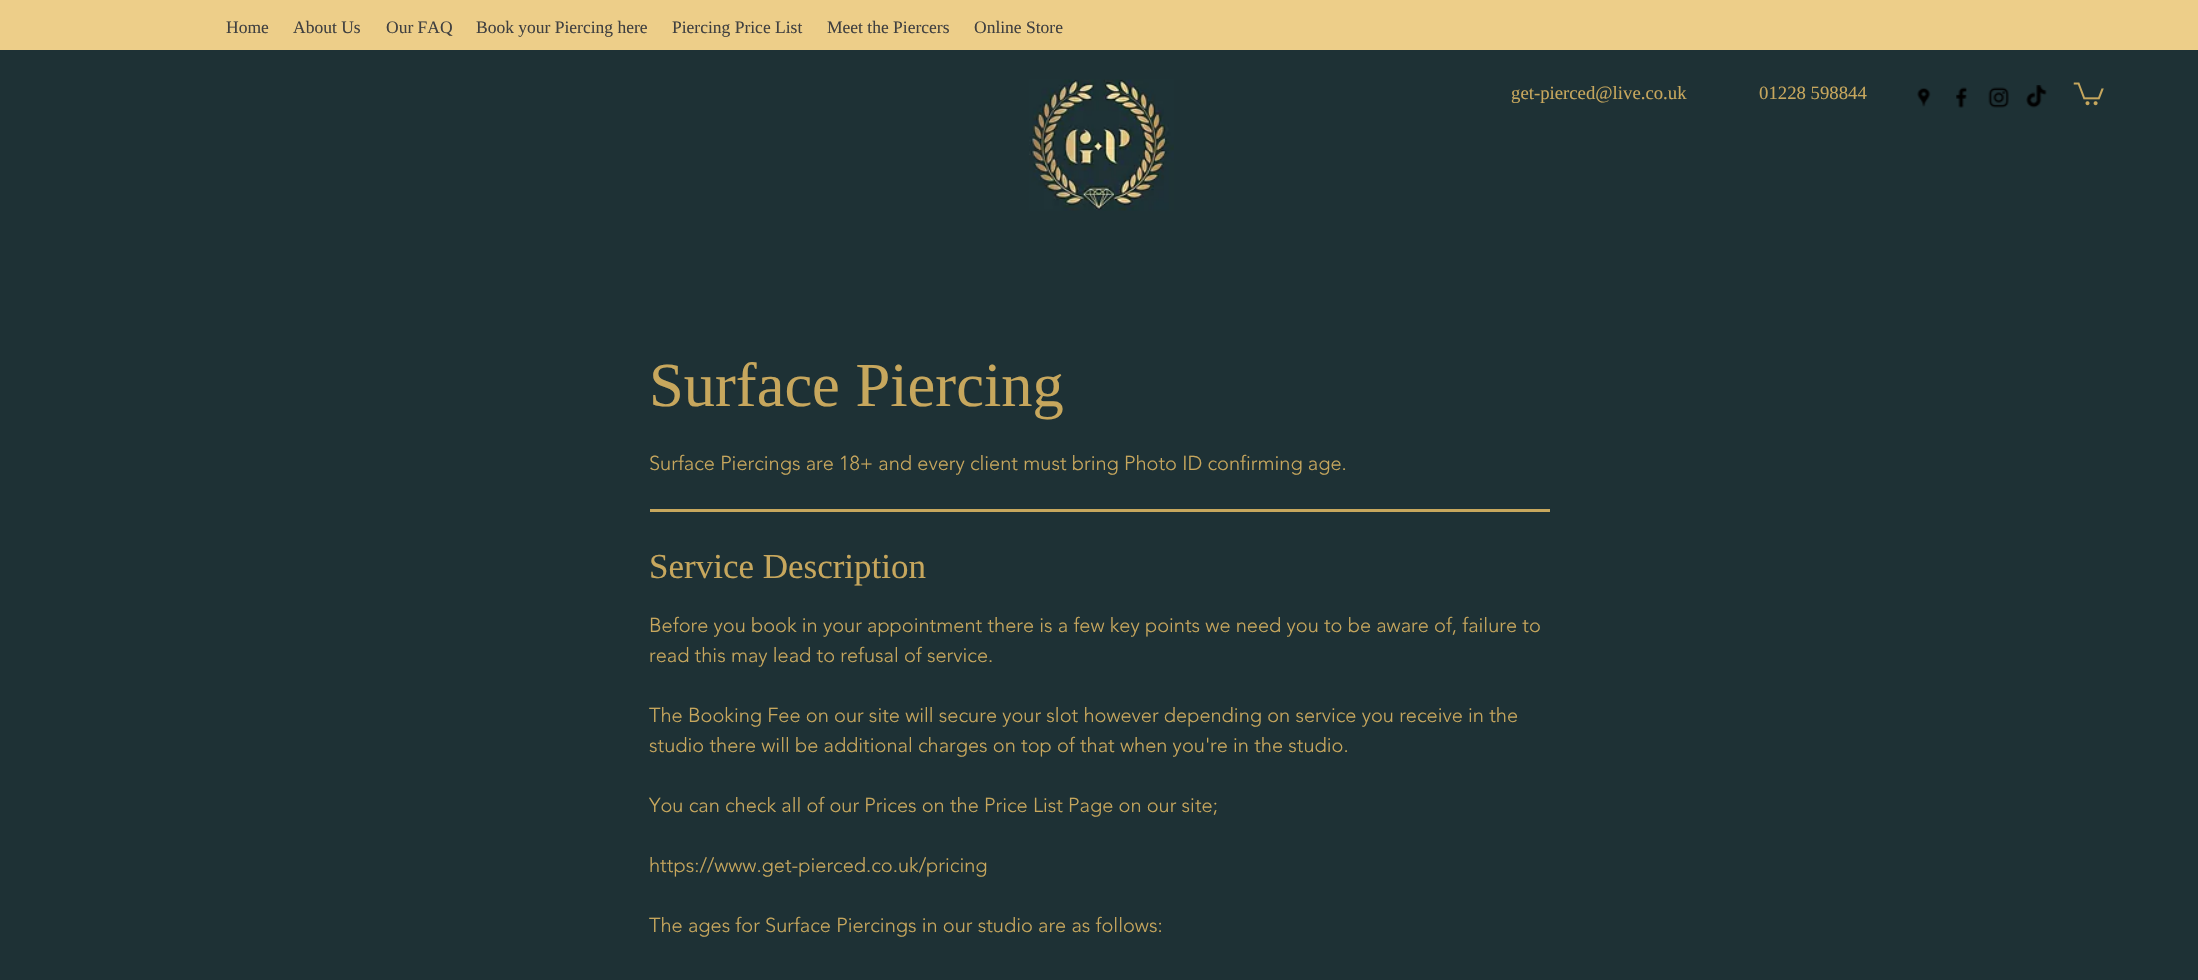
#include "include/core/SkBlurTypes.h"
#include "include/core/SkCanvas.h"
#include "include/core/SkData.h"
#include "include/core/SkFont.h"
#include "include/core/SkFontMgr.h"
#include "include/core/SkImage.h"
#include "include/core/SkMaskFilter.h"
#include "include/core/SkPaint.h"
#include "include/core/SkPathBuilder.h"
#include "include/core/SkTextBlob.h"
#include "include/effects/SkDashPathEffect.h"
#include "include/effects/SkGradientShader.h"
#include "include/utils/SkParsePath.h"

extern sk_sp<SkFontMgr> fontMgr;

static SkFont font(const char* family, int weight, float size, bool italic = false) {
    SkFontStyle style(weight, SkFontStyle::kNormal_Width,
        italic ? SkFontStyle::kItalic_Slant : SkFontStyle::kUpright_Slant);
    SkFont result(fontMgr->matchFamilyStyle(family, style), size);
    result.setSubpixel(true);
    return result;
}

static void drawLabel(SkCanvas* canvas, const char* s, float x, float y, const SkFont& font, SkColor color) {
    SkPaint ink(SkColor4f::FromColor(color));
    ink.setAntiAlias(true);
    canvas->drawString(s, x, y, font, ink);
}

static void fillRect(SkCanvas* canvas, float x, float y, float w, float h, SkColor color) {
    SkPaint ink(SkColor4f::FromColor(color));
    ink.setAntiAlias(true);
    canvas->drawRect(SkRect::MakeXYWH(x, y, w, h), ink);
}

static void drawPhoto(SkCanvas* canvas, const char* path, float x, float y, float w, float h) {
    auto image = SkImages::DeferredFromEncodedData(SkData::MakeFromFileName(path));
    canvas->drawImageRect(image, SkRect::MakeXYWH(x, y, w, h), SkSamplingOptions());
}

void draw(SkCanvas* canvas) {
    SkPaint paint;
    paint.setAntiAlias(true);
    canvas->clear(0xFF1E3135);
    fillRect(canvas, 0, 0, 2198, 50, 0xFFEDCE89);
    SkFont font1 = font("Liberation Serif", 400, 17.5f);
    drawLabel(canvas, "Home", 226, 33, font1, 0xFF404040);
    drawLabel(canvas, "About Us", 293, 33, font1, 0xFF404040);
    drawLabel(canvas, "Our FAQ", 386, 33, font1, 0xFF404040);
    drawLabel(canvas, "Book your Piercing here", 476, 33, font1, 0xFF404040);
    drawLabel(canvas, "Piercing Price List", 672, 33, font1, 0xFF404040);
    drawLabel(canvas, "Meet the Piercers", 827, 33, font1, 0xFF404040);
    drawLabel(canvas, "Online Store", 974, 33, font1, 0xFF404040);
    drawPhoto(canvas, "assets/img1.png", 1029, 79, 145, 132);
    SkFont font2 = font("Liberation Serif", 400, 18.75f);
    drawLabel(canvas, "get-pierced@live.co.uk", 1511, 99, font2, 0xFFC7A75D);
    drawLabel(canvas, "01228 598844", 1759, 99, font2, 0xFFC7A75D);
    drawPhoto(canvas, "assets/img2.png", 1917, 88, 14, 19);
    drawPhoto(canvas, "assets/img3.png", 1956, 87, 11, 21);
    drawPhoto(canvas, "assets/img4.png", 1988, 87, 21, 21);
    drawPhoto(canvas, "assets/img5.png", 2026, 85, 21, 23);
    drawPhoto(canvas, "assets/img6.png", 2073, 82, 31, 24);
    SkFont font3 = font("Liberation Serif", 400, 62.5f);
    drawLabel(canvas, "Surface Piercing", 649, 406, font3, 0xFFC7A75D);
    SkFont font4 = font("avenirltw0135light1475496", 300, 20);
    drawLabel(canvas, "Surface Piercings are 18+ and every client must bring Photo ID confirming age.", 649, 470, font4, 0xFFC7A75D);
    fillRect(canvas, 650, 509, 900, 3, 0xFFC7A75D);
    SkFont font5 = font("Liberation Serif", 400, 35);
    drawLabel(canvas, "Service Description", 649, 578, font5, 0xFFC7A75D);
    drawLabel(canvas, "Before you book in your appointment there is a few key points we need you to be aware of, failure to", 649, 632, font4, 0xFFC7A75D);
    drawLabel(canvas, "read this may lead to refusal of service.", 649, 662, font4, 0xFFC7A75D);
    drawLabel(canvas, "The Booking Fee on our site will secure your slot however depending on service you receive in the", 649, 722, font4, 0xFFC7A75D);
    drawLabel(canvas, "studio there will be additional charges on top of that when you're in the studio.", 649, 752, font4, 0xFFC7A75D);
    drawLabel(canvas, "You can check all of our Prices on the Price List Page on our site;", 649, 812, font4, 0xFFC7A75D);
    drawLabel(canvas, "https://www.get-pierced.co.uk/pricing", 649, 872, font4, 0xFFC7A75D);
    drawLabel(canvas, "The ages for Surface Piercings in our studio are as follows:", 649, 932, font4, 0xFFC7A75D);
}
